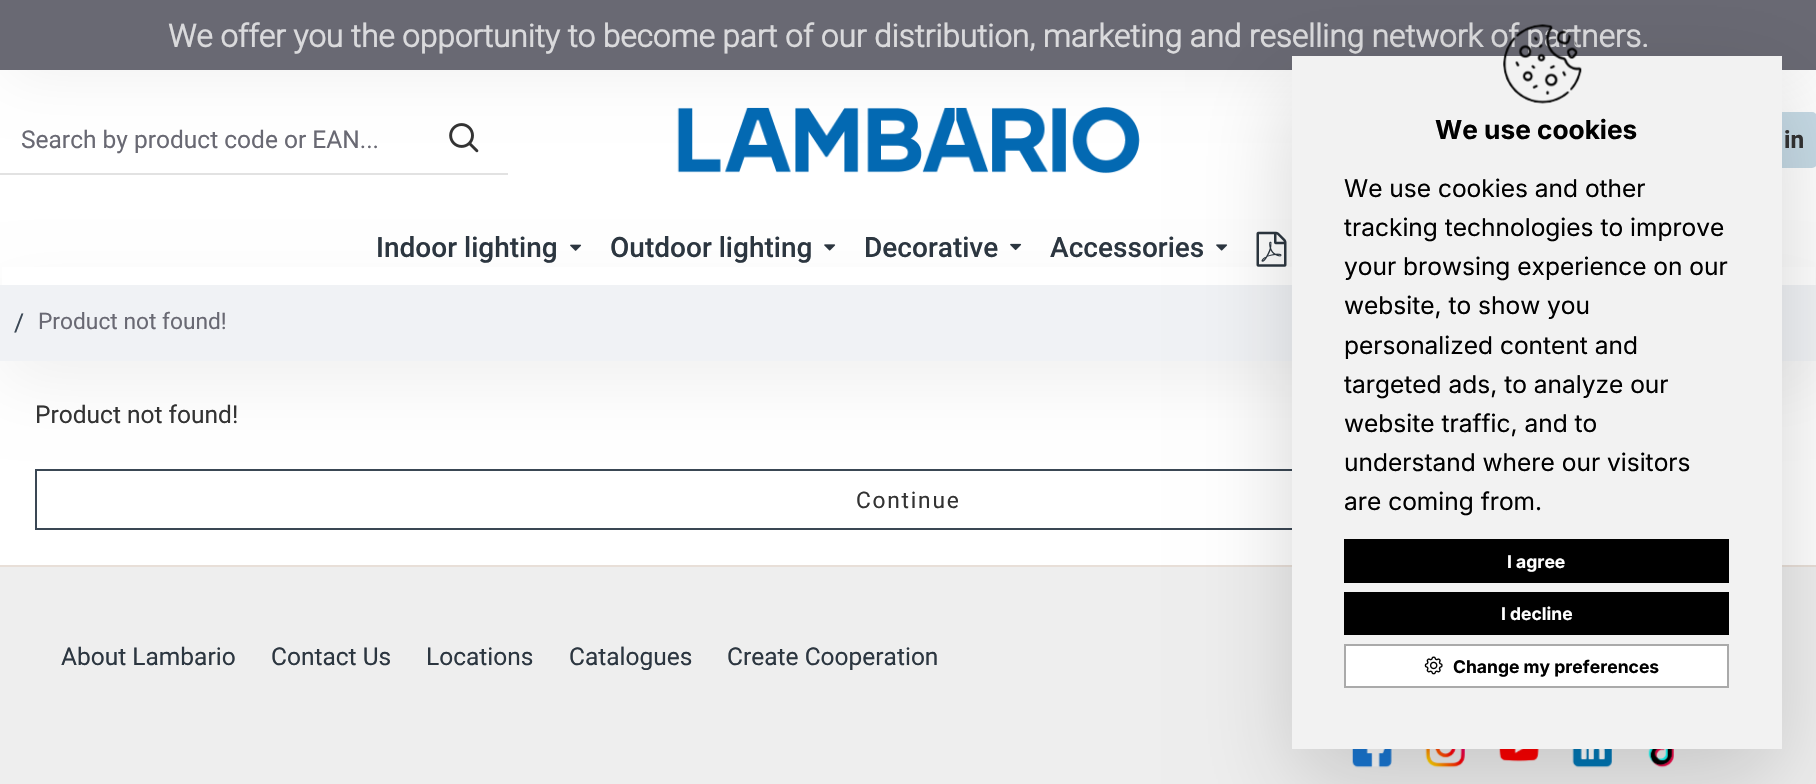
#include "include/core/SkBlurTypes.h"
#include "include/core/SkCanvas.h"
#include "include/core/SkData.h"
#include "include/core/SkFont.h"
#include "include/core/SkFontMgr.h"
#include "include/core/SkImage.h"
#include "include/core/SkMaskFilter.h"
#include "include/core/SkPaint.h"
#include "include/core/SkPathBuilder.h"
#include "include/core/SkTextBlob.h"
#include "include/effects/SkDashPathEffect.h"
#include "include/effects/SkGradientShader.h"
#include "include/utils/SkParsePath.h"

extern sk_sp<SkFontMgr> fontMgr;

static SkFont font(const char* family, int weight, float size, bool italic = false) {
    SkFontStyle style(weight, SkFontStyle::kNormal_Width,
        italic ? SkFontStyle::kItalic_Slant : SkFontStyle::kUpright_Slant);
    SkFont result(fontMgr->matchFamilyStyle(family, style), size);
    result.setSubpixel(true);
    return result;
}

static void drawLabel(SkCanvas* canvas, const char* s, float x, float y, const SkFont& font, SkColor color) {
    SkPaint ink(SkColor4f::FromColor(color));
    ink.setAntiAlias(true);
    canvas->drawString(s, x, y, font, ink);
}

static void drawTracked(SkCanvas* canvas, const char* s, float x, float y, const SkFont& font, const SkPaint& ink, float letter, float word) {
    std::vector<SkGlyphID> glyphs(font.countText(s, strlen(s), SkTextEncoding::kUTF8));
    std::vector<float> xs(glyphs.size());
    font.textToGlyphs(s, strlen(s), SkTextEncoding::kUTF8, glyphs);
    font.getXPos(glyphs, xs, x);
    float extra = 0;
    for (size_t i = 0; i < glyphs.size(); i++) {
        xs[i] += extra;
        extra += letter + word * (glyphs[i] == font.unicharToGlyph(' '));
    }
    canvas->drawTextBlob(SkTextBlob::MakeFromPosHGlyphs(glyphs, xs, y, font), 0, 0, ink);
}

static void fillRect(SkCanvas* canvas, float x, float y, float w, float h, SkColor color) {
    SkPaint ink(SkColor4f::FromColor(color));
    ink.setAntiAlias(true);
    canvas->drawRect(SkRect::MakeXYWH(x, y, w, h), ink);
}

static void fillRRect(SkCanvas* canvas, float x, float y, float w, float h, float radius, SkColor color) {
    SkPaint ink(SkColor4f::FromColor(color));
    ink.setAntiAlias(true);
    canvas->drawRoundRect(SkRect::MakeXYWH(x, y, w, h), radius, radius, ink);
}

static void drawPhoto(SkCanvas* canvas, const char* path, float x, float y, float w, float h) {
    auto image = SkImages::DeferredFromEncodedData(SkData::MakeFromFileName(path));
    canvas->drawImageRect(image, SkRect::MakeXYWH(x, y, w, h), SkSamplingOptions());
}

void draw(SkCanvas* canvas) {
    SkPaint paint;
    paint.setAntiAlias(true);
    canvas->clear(0xFFFFFFFF);
    paint.setColor(0xFFEEEEEE);
    paint.setMaskFilter(SkMaskFilter::MakeBlur(kNormal_SkBlurStyle, 35));
    canvas->drawRect(SkRect::MakeXYWH(0, 303, 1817, 75), paint);
    paint.setMaskFilter(nullptr);
    fillRect(canvas, 2, 267, 1813, 18, 0xFFFFFFFF);
    paint.setColor(0x12000000);
    paint.setMaskFilter(SkMaskFilter::MakeBlur(kNormal_SkBlurStyle, 30.5f));
    canvas->drawRect(SkRect::MakeXYWH(9, 18, 1799, 52), paint);
    paint.setMaskFilter(nullptr);
    fillRect(canvas, 0, 0, 1816, 70, 0xFF696973);
    SkFont font1 = font("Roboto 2", 700, 31.5f);
    drawLabel(canvas, "We offer you the opportunity to become part of our distribution, marketing and reselling network of partners.", 168, 47, font1, 0xFFDADADC);
    fillRect(canvas, 0, 173, 508, 2, 0xFFE2E2E2);
    SkFont font2 = font("Roboto", 400, 24.5f);
    drawLabel(canvas, "Search by product code or EAN...", 21, 148, font2, 0xFF696973);
    drawPhoto(canvas, "assets/img1.png", 449, 123, 30, 30);
    drawPhoto(canvas, "assets/img2.png", 677, 107, 463, 67);
    fillRRect(canvas, 1680, 112, 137, 56, 5, 0xFFC6DAE5);
    SkFont font3 = font("Roboto", 700, 24.5f);
    drawLabel(canvas, "in", 1784, 148, font3, 0xFF333333);
    SkFont font4 = font("Roboto", 500, 28);
    drawLabel(canvas, "Indoor lighting", 376, 257, font4, 0xFF2C3640);
    drawPhoto(canvas, "assets/img3.png", 570, 244, 12, 7);
    drawLabel(canvas, "Outdoor lighting", 610, 257, font4, 0xFF2C3640);
    drawPhoto(canvas, "assets/img4.png", 824, 244, 12, 7);
    drawLabel(canvas, "Decorative", 864, 257, font4, 0xFF2C3640);
    drawPhoto(canvas, "assets/img5.png", 1010, 243, 12, 8);
    drawLabel(canvas, "Accessories", 1050, 257, font4, 0xFF2C3640);
    drawPhoto(canvas, "assets/img6.png", 1216, 244, 12, 7);
    drawPhoto(canvas, "assets/img7.png", 1256, 231, 31, 36);
    fillRect(canvas, 0, 285, 1816, 76, 0xFFF0F2F5);
    drawLabel(canvas, "/", 14, 331, font2, 0xFF3A4754);
    SkFont font5 = font("Roboto", 400, 22.75f);
    drawLabel(canvas, "Product not found!", 38, 329, font5, 0xFF696973);
    drawLabel(canvas, "Product not found!", 35, 423, font2, 0xFF333333);
    paint.setStroke(true);
    paint.setStrokeWidth(2);
    paint.setColor(0xFF3A4754);
    canvas->drawRect(SkRect::MakeXYWH(36, 470, 1745, 59), paint);
    paint.setStroke(false);
    paint.setColor(0xFF333333);
    drawTracked(canvas, "Continue", 856, 508, font5, paint, 1.75f, 0);
    fillRect(canvas, 0, 567, 1816, 217, 0xFFEEEEEE);
    fillRect(canvas, 0, 565, 1816, 2, 0xFFE8DFD8);
    drawLabel(canvas, "About Lambario", 61, 665, font2, 0xFF2C3640);
    drawLabel(canvas, "Contact Us", 271, 665, font2, 0xFF2C3640);
    drawLabel(canvas, "Locations", 426, 665, font2, 0xFF2C3640);
    drawLabel(canvas, "Catalogues", 569, 665, font2, 0xFF2C3640);
    drawLabel(canvas, "Create Cooperation", 727, 665, font2, 0xFF2C3640);
    drawPhoto(canvas, "assets/img8.png", 1352, 749, 40, 19);
    drawPhoto(canvas, "assets/img9.png", 1425, 749, 40, 19);
    drawPhoto(canvas, "assets/img10.png", 1499, 749, 40, 13);
    drawPhoto(canvas, "assets/img11.png", 1572, 749, 40, 19);
    drawPhoto(canvas, "assets/img12.png", 1648, 749, 26, 19);
    paint.setColor(0x29000000);
    paint.setMaskFilter(SkMaskFilter::MakeBlur(kNormal_SkBlurStyle, 44));
    canvas->drawRect(SkRect::MakeXYWH(1292, 91, 490, 693), paint);
    paint.setMaskFilter(nullptr);
    fillRect(canvas, 1292, 56, 490, 693, 0xFFF2F2F2);
    drawPhoto(canvas, "assets/img13.png", 1503, 24, 79, 80);
    SkFont font6 = font("Inter", 700, 26.25f);
    drawLabel(canvas, "We use cookies", 1435, 139, font6, 0xFF000000);
    SkFont font7 = font("Inter", 400, 24.5f);
    drawLabel(canvas, "We use cookies and other", 1344, 197, font7, 0xFF000000);
    drawLabel(canvas, "tracking technologies to improve", 1344, 236, font7, 0xFF000000);
    drawLabel(canvas, "your browsing experience on our", 1344, 275, font7, 0xFF000000);
    drawLabel(canvas, "website, to show you", 1344, 314, font7, 0xFF000000);
    drawLabel(canvas, "personalized content and", 1344, 354, font7, 0xFF000000);
    drawLabel(canvas, "targeted ads, to analyze our", 1344, 393, font7, 0xFF000000);
    drawLabel(canvas, "website traffic, and to", 1344, 432, font7, 0xFF000000);
    drawLabel(canvas, "understand where our visitors", 1344, 471, font7, 0xFF000000);
    drawLabel(canvas, "are coming from.", 1344, 510, font7, 0xFF000000);
    fillRect(canvas, 1344, 539, 385, 44, 0xFF000000);
    SkFont font8 = font("Inter", 700, 17.5f);
    drawLabel(canvas, "I agree", 1507, 568, font8, 0xFFFFFFFF);
    fillRect(canvas, 1344, 592, 385, 43, 0xFF000000);
    drawLabel(canvas, "I decline", 1501, 620, font8, 0xFFFFFFFF);
    paint.setColor(0xFFFFFFFF);
    canvas->drawRect(SkRect::MakeXYWH(1345, 645, 383, 42), paint);
    paint.setStroke(true);
    paint.setColor(0xFFAAAAAA);
    canvas->drawRect(SkRect::MakeXYWH(1345, 645, 383, 42), paint);
    drawPhoto(canvas, "assets/img14.png", 1424, 656, 19, 19);
    drawLabel(canvas, "Change my preferences", 1453, 673, font8, 0xFF000000);
}
